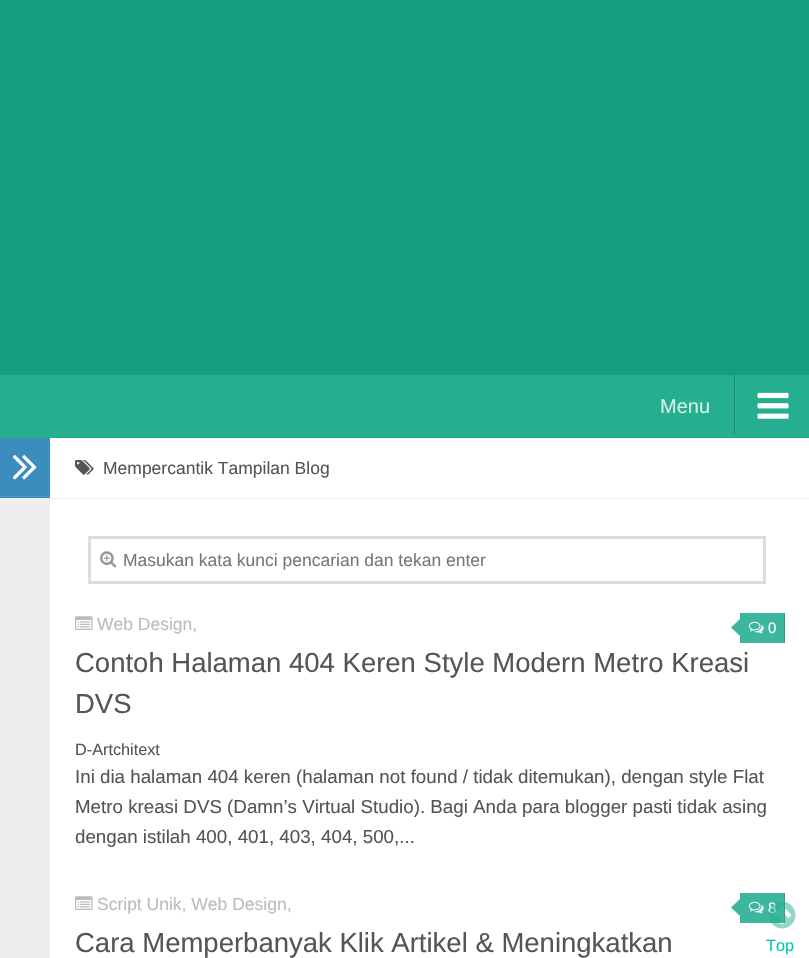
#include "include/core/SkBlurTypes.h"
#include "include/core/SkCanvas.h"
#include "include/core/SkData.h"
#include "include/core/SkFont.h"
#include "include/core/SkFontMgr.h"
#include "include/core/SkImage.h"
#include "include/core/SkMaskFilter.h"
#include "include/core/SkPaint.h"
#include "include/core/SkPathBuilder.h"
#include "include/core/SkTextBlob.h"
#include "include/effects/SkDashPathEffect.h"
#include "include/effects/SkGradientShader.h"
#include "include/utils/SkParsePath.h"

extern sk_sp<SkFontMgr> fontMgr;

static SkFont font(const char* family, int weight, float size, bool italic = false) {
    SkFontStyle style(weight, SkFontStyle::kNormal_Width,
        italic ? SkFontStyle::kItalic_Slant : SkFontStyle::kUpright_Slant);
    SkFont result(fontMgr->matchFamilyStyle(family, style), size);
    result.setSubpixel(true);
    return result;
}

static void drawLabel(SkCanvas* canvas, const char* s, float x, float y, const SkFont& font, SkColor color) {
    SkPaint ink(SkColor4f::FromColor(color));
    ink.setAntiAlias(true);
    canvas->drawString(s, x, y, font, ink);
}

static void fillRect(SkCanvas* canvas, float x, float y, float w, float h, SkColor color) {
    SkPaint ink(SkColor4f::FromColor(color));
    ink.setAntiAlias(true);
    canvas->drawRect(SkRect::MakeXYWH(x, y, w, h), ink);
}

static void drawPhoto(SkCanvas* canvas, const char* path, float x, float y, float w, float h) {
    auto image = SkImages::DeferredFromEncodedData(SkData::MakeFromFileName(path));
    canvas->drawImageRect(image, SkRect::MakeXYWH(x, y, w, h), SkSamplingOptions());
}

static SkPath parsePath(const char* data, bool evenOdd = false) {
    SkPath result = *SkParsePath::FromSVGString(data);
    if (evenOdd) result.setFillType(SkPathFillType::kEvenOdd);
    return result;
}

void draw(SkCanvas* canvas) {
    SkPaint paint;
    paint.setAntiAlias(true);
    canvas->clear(0xFF159D80);
    fillRect(canvas, 0, 375, 809, 63, 0xFF26AE91);
    SkFont font1 = font("Liberation Sans", 400, 20);
    drawLabel(canvas, "Menu", 660, 413, font1, 0xFFD4EFE9);
    fillRect(canvas, 734, 375, 1, 60, 0xFF1E8B74);
    fillRect(canvas, 735, 375, 1, 60, 0xFF31B297);
    drawPhoto(canvas, "assets/img1.png", 757, 392, 32, 27);
    fillRect(canvas, 0, 498, 50, 460, 0xFFEEEEEE);
    fillRect(canvas, 0, 438, 50, 60, 0xFF3B8DBD);
    fillRect(canvas, 0, 496, 50, 1, 0xFF4F98C4);
    drawPhoto(canvas, "assets/img2.png", 12, 455, 25, 25);
    fillRect(canvas, 50, 438, 759, 520, 0xFFFFFFFF);
    fillRect(canvas, 50, 498, 759, 1, 0xFFEEEEEE);
    drawPhoto(canvas, "assets/img3.png", 75, 460, 19, 15);
    SkFont font2 = font("Liberation Sans", 400, 17.5f);
    drawLabel(canvas, "Mempercantik Tampilan Blog", 103, 474, font2, 0xFF555555);
    paint.setStroke(true);
    paint.setStrokeWidth(3);
    paint.setColor(0xFFDDDDDD);
    canvas->drawRect(SkRect::MakeXYWH(89.5f, 537.5f, 675, 45), paint);
    drawPhoto(canvas, "assets/img4.png", 100, 551, 17, 17);
    drawLabel(canvas, "Masukan kata kunci pencarian dan tekan enter", 123, 566, font2, 0xFF777777);
    drawPhoto(canvas, "assets/img5.png", 75, 616, 18, 14);
    drawLabel(canvas, "Web Design,", 97, 630, font2, 0xFFBBBBBB);
    fillRect(canvas, 740, 613, 44, 30, 0xFF3CB69C);
    fillRect(canvas, 784, 613, 1, 30, 0xFF359782);
    paint.setStroke(false);
    paint.setColor(0xFF3CB69C);
    canvas->drawPath(parsePath("M740 619V636L731 627.5Z"), paint);
    drawPhoto(canvas, "assets/img6.png", 748, 621, 16, 13);
    SkFont font3 = font("Liberation Sans", 400, 15);
    drawLabel(canvas, "0", 768, 633, font3, 0xFFFFFFFF);
    SkFont font4 = font("Liberation Sans", 400, 27.5f);
    drawLabel(canvas, "Contoh Halaman 404 Keren Style Modern Metro Kreasi", 75, 672, font4, 0xFF555555);
    drawLabel(canvas, "DVS", 75, 713, font4, 0xFF555555);
    SkFont font5 = font("Liberation Sans", 400, 16.25f);
    drawLabel(canvas, "D-Artchitext", 75, 755, font5, 0xFF555555);
    SkFont font6 = font("Liberation Sans", 400, 18.75f);
    drawLabel(canvas, "Ini dia halaman 404 keren (halaman not found / tidak ditemukan), dengan style Flat", 75, 783, font6, 0xFF555555);
    drawLabel(canvas, "Metro kreasi DVS (Damn’s Virtual Studio). Bagi Anda para blogger pasti tidak asing", 75, 813, font6, 0xFF555555);
    drawLabel(canvas, "dengan istilah 400, 401, 403, 404, 500,...", 75, 843, font6, 0xFF555555);
    drawPhoto(canvas, "assets/img5.png", 75, 896, 18, 14);
    drawLabel(canvas, "Script Unik, Web Design,", 97, 910, font2, 0xFFBBBBBB);
    fillRect(canvas, 740, 893, 44, 30, 0xFF3CB69C);
    fillRect(canvas, 784, 893, 1, 30, 0xFF359782);
    canvas->drawPath(parsePath("M740 899V916L731 907.5Z"), paint);
    drawPhoto(canvas, "assets/img6.png", 748, 901, 16, 13);
    drawLabel(canvas, "8", 768, 913, font3, 0xFFFFFFFF);
    drawLabel(canvas, "Cara Memperbanyak Klik Artikel & Meningkatkan", 75, 952, font4, 0xFF555555);
    drawPhoto(canvas, "assets/img7.png", 769, 902, 27, 27);
    drawLabel(canvas, "Top", 766, 951, font5, 0xFF03C9A9);
}
